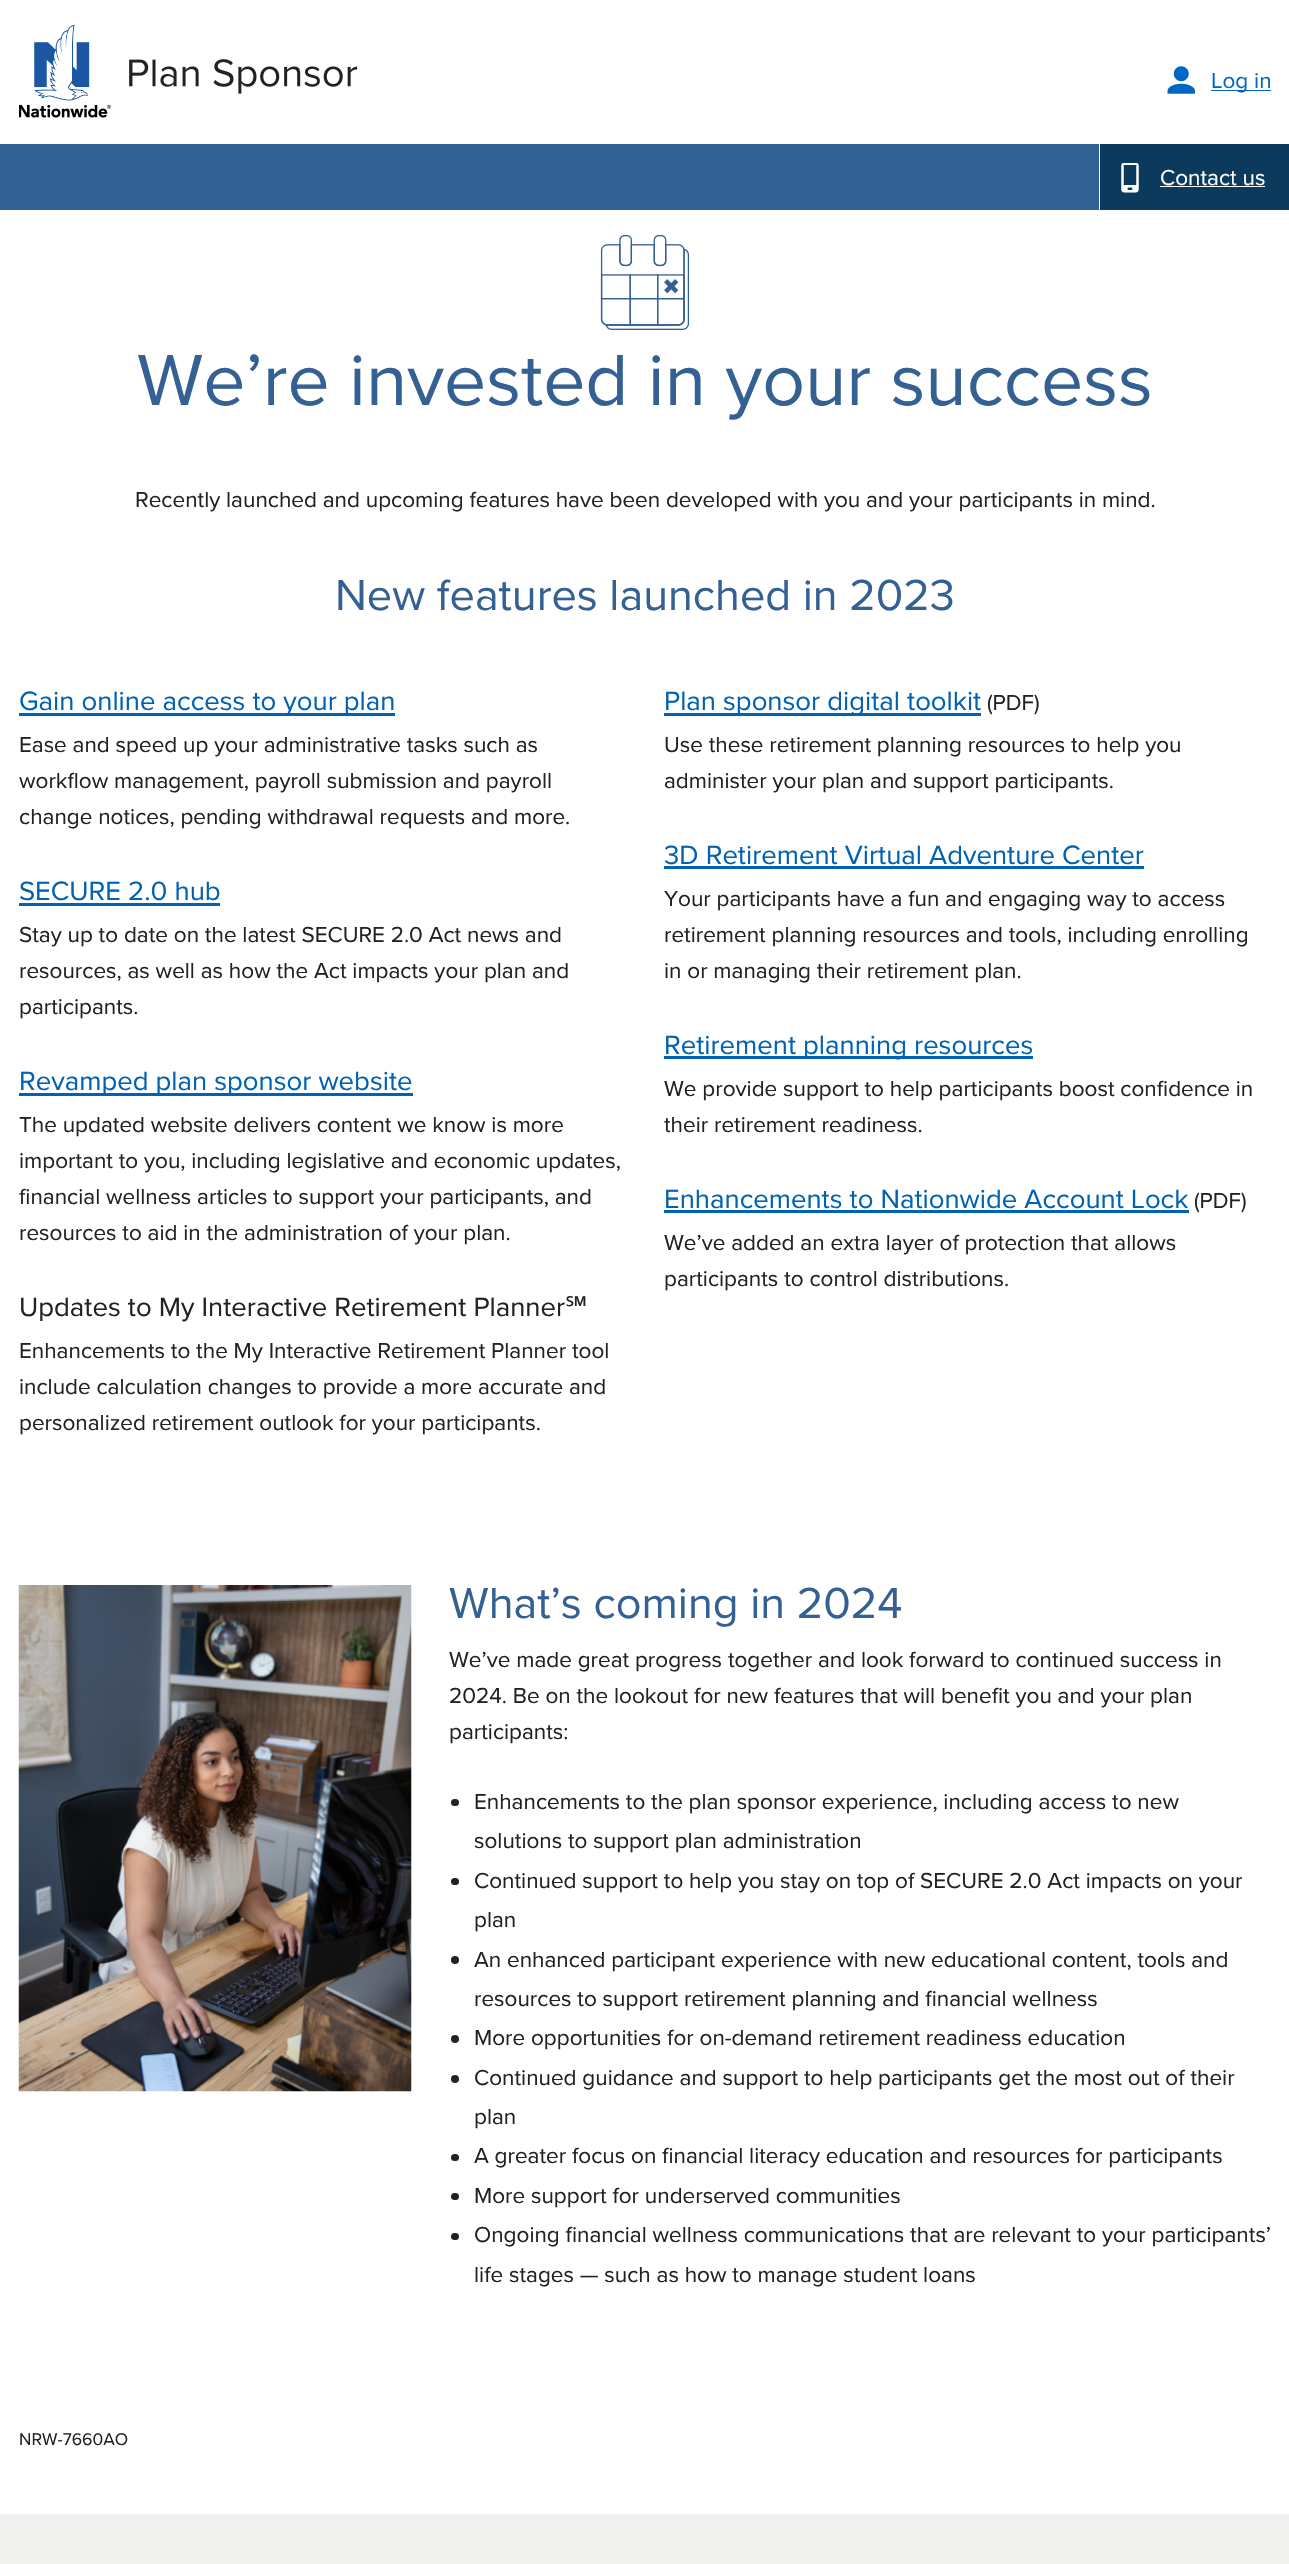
#include "include/core/SkBlurTypes.h"
#include "include/core/SkCanvas.h"
#include "include/core/SkData.h"
#include "include/core/SkFont.h"
#include "include/core/SkFontMgr.h"
#include "include/core/SkImage.h"
#include "include/core/SkMaskFilter.h"
#include "include/core/SkPaint.h"
#include "include/core/SkPathBuilder.h"
#include "include/core/SkTextBlob.h"
#include "include/effects/SkDashPathEffect.h"
#include "include/effects/SkGradientShader.h"
#include "include/utils/SkParsePath.h"

extern sk_sp<SkFontMgr> fontMgr;

static SkFont font(const char* family, int weight, float size, bool italic = false) {
    SkFontStyle style(weight, SkFontStyle::kNormal_Width,
        italic ? SkFontStyle::kItalic_Slant : SkFontStyle::kUpright_Slant);
    SkFont result(fontMgr->matchFamilyStyle(family, style), size);
    result.setSubpixel(true);
    return result;
}

static void drawLabel(SkCanvas* canvas, const char* s, float x, float y, const SkFont& font, SkColor color) {
    SkPaint ink(SkColor4f::FromColor(color));
    ink.setAntiAlias(true);
    canvas->drawString(s, x, y, font, ink);
}

static void fillRect(SkCanvas* canvas, float x, float y, float w, float h, SkColor color) {
    SkPaint ink(SkColor4f::FromColor(color));
    ink.setAntiAlias(true);
    canvas->drawRect(SkRect::MakeXYWH(x, y, w, h), ink);
}

static void fillRRect(SkCanvas* canvas, float x, float y, float w, float h, float radius, SkColor color) {
    SkPaint ink(SkColor4f::FromColor(color));
    ink.setAntiAlias(true);
    canvas->drawRoundRect(SkRect::MakeXYWH(x, y, w, h), radius, radius, ink);
}

static void drawPhoto(SkCanvas* canvas, const char* path, float x, float y, float w, float h) {
    auto image = SkImages::DeferredFromEncodedData(SkData::MakeFromFileName(path));
    canvas->drawImageRect(image, SkRect::MakeXYWH(x, y, w, h), SkSamplingOptions());
}

void draw(SkCanvas* canvas) {
    SkPaint paint;
    paint.setAntiAlias(true);
    canvas->clear(0xFFFFFFFF);
    drawPhoto(canvas, "assets/img1.png", 19, 25, 339, 93);
    drawPhoto(canvas, "assets/img2.png", 1167, 66, 28, 28);
    fillRect(canvas, 1211, 90, 60, 1, 0xFF0067C5);
    SkFont font1 = font("Proxima Nova", 400, 22.5f);
    drawLabel(canvas, "Log in", 1211, 88, font1, 0xFF0067C5);
    {
        const SkColor colors[] = {0xFF326295, 0xFF326295, 0xFF0B3A5D, 0xFF0B3A5D};
        const float stops[] = {0, 0.49f, 0.51f, 1};
        const SkPoint ends[] = {{0, 177}, {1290, 177}};
        paint.setShader(SkGradientShader::MakeLinear(ends, colors, stops, 4, SkTileMode::kClamp));
        paint.setAlpha(255);
    }
    canvas->drawRect(SkRect::MakeXYWH(0, 144, 15, 66), paint);
    fillRect(canvas, 15, 144, 1084, 66, 0xFF326295);
    fillRect(canvas, 1100, 144, 189, 66, 0xFF0B3A5D);
    drawPhoto(canvas, "assets/img3.png", 1121, 163, 18, 30);
    drawLabel(canvas, "Contact us", 1160, 185, font1, 0xFFFFFFFF);
    fillRect(canvas, 1160, 186, 105, 1, 0xFFFFFFFF);
    drawPhoto(canvas, "assets/img4.png", 600, 235, 90, 95);
    SkFont font2 = font("Proxima Nova", 400, 75);
    drawLabel(canvas, "We’re invested in your success", 137, 405, font2, 0xFF346094);
    drawLabel(canvas, "Recently launched and upcoming features have been developed with you and your participants in mind.", 135, 507, font1, 0xFF222222);
    SkFont font3 = font("Proxima Nova", 400, 45);
    drawLabel(canvas, "New features launched in 2023", 335, 610, font3, 0xFF346094);
    fillRect(canvas, 19, 713, 376, 3, 0xFF0062B3);
    SkFont font4 = font("Proxima Nova", 400, 27.5f);
    drawLabel(canvas, "Gain online access to your plan", 19, 710, font4, 0xFF0062B3);
    drawLabel(canvas, "Ease and speed up your administrative tasks such as", 19, 752, font1, 0xFF222222);
    drawLabel(canvas, "workflow management, payroll submission and payroll", 19, 788, font1, 0xFF222222);
    drawLabel(canvas, "change notices, pending withdrawal requests and more.", 19, 824, font1, 0xFF222222);
    drawLabel(canvas, "SECURE 2.0 hub", 19, 900, font4, 0xFF0062B3);
    fillRect(canvas, 19, 903, 201, 3, 0xFF0062B3);
    drawLabel(canvas, "Stay up to date on the latest SECURE 2.0 Act news and", 19, 942, font1, 0xFF222222);
    drawLabel(canvas, "resources, as well as how the Act impacts your plan and", 19, 978, font1, 0xFF222222);
    drawLabel(canvas, "participants.", 19, 1014, font1, 0xFF222222);
    fillRect(canvas, 19, 1093, 394, 3, 0xFF0062B3);
    drawLabel(canvas, "Revamped plan sponsor website", 19, 1090, font4, 0xFF0062B3);
    drawLabel(canvas, "The updated website delivers content we know is more", 19, 1132, font1, 0xFF222222);
    drawLabel(canvas, "important to you, including legislative and economic updates,", 19, 1168, font1, 0xFF222222);
    drawLabel(canvas, "financial wellness articles to support your participants, and", 19, 1204, font1, 0xFF222222);
    drawLabel(canvas, "resources to aid in the administration of your plan.", 19, 1240, font1, 0xFF222222);
    drawLabel(canvas, "Updates to My Interactive Retirement Planner", 19, 1316, font4, 0xFF222222);
    SkFont font5 = font("Noto Sans", 400, 27.5f);
    drawLabel(canvas, "℠", 565, 1316, font5, 0xFF222222);
    drawLabel(canvas, "Enhancements to the My Interactive Retirement Planner tool", 19, 1358, font1, 0xFF222222);
    drawLabel(canvas, "include calculation changes to provide a more accurate and", 19, 1394, font1, 0xFF222222);
    drawLabel(canvas, "personalized retirement outlook for your participants.", 19, 1430, font1, 0xFF222222);
    fillRect(canvas, 664, 713, 317, 3, 0xFF0062B3);
    drawLabel(canvas, "Plan sponsor digital toolkit", 664, 710, font4, 0xFF0062B3);
    drawLabel(canvas, "(PDF)", 987, 710, font1, 0xFF222222);
    drawLabel(canvas, "Use these retirement planning resources to help you", 664, 752, font1, 0xFF222222);
    drawLabel(canvas, "administer your plan and support participants.", 664, 788, font1, 0xFF222222);
    drawLabel(canvas, "3D Retirement Virtual Adventure Center", 664, 864, font4, 0xFF0062B3);
    fillRect(canvas, 664, 866, 480, 3, 0xFF0062B3);
    drawLabel(canvas, "Your participants have a fun and engaging way to access", 664, 906, font1, 0xFF222222);
    drawLabel(canvas, "retirement planning resources and tools, including enrolling", 664, 942, font1, 0xFF222222);
    drawLabel(canvas, "in or managing their retirement plan.", 664, 978, font1, 0xFF222222);
    fillRect(canvas, 664, 1056, 369, 3, 0xFF0062B3);
    drawLabel(canvas, "Retirement planning resources", 664, 1054, font4, 0xFF0062B3);
    drawLabel(canvas, "We provide support to help participants boost confidence in", 664, 1096, font1, 0xFF222222);
    drawLabel(canvas, "their retirement readiness.", 664, 1132, font1, 0xFF222222);
    drawLabel(canvas, "Enhancements to Nationwide Account Lock", 664, 1208, font4, 0xFF0062B3);
    fillRect(canvas, 664, 1210, 525, 3, 0xFF0062B3);
    drawLabel(canvas, "(PDF)", 1194, 1208, font1, 0xFF222222);
    drawLabel(canvas, "We’ve added an extra layer of protection that allows", 664, 1250, font1, 0xFF222222);
    drawLabel(canvas, "participants to control distributions.", 664, 1286, font1, 0xFF222222);
    drawPhoto(canvas, "assets/img5.png", 18, 1585, 394, 507);
    drawLabel(canvas, "What’s coming in 2024", 449, 1618, font3, 0xFF346094);
    drawLabel(canvas, "We’ve made great progress together and look forward to continued success in", 449, 1667, font1, 0xFF222222);
    drawLabel(canvas, "2024. Be on the lookout for new features that will benefit you and your plan", 449, 1703, font1, 0xFF222222);
    drawLabel(canvas, "participants:", 449, 1739, font1, 0xFF222222);
    fillRRect(canvas, 451, 1799, 8, 7, 3.5f, 0xFF222222);
    drawLabel(canvas, "Enhancements to the plan sponsor experience, including access to new", 474, 1809, font1, 0xFF222222);
    drawLabel(canvas, "solutions to support plan administration", 474, 1848, font1, 0xFF222222);
    fillRRect(canvas, 451, 1878, 8, 7, 3.5f, 0xFF222222);
    drawLabel(canvas, "Continued support to help you stay on top of SECURE 2.0 Act impacts on your", 474, 1888, font1, 0xFF222222);
    drawLabel(canvas, "plan", 474, 1927, font1, 0xFF222222);
    paint.setShader(nullptr);
    paint.setColor(0xFF222222);
    canvas->drawCircle(455, 1960, 4, paint);
    drawLabel(canvas, "An enhanced participant experience with new educational content, tools and", 474, 1967, font1, 0xFF222222);
    drawLabel(canvas, "resources to support retirement planning and financial wellness", 474, 2006, font1, 0xFF222222);
    canvas->drawCircle(455, 2039, 4, paint);
    drawLabel(canvas, "More opportunities for on-demand retirement readiness education", 474, 2045, font1, 0xFF222222);
    canvas->drawCircle(455, 2079, 4, paint);
    drawLabel(canvas, "Continued guidance and support to help participants get the most out of their", 474, 2085, font1, 0xFF222222);
    drawLabel(canvas, "plan", 474, 2124, font1, 0xFF222222);
    fillRRect(canvas, 451, 2154, 8, 7, 3.5f, 0xFF222222);
    drawLabel(canvas, "A greater focus on financial literacy education and resources for participants", 474, 2163, font1, 0xFF222222);
    fillRRect(canvas, 451, 2193, 8, 7, 3.5f, 0xFF222222);
    drawLabel(canvas, "More support for underserved communities", 474, 2203, font1, 0xFF222222);
    fillRRect(canvas, 451, 2233, 8, 7, 3.5f, 0xFF222222);
    drawLabel(canvas, "Ongoing financial wellness communications that are relevant to your participants’", 474, 2242, font1, 0xFF222222);
    drawLabel(canvas, "life stages — such as how to manage student loans", 474, 2282, font1, 0xFF222222);
    SkFont font6 = font("Proxima Nova", 400, 17.5f);
    drawLabel(canvas, "NRW-7660AO", 19, 2445, font6, 0xFF222222);
    fillRect(canvas, 0, 2514, 1289, 50, 0xFFF0F0EE);
}
